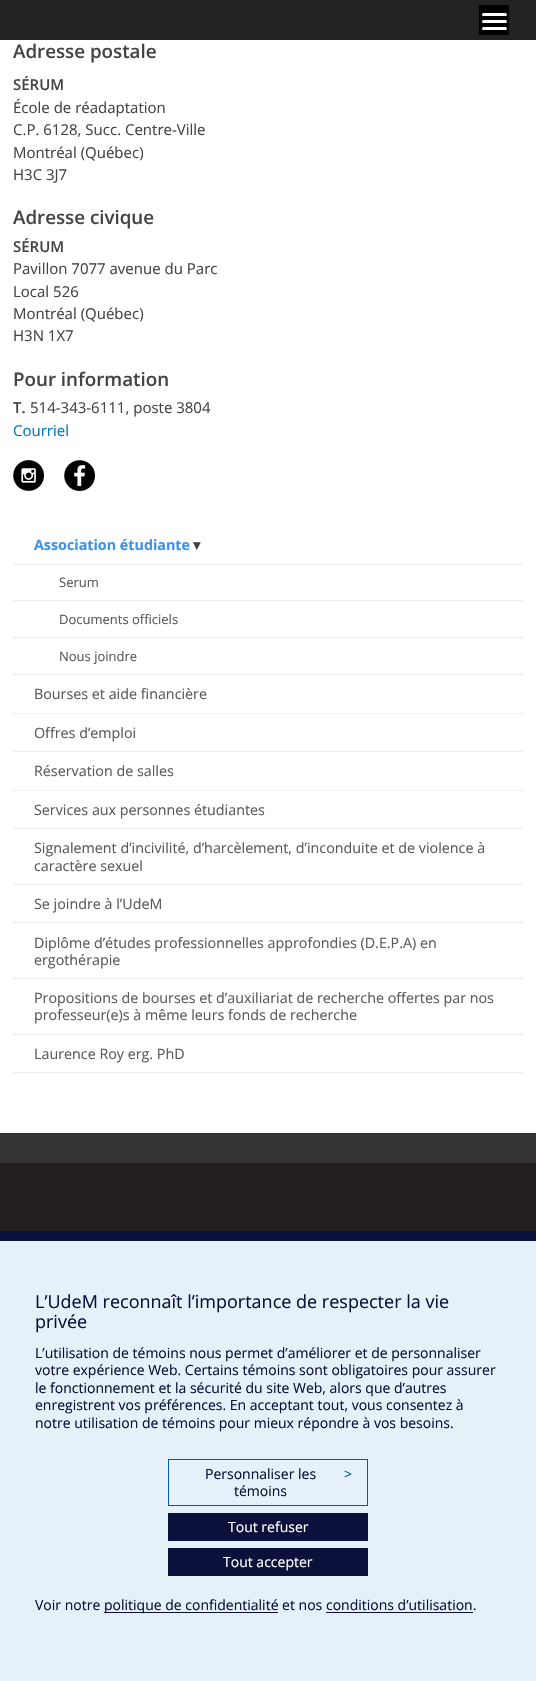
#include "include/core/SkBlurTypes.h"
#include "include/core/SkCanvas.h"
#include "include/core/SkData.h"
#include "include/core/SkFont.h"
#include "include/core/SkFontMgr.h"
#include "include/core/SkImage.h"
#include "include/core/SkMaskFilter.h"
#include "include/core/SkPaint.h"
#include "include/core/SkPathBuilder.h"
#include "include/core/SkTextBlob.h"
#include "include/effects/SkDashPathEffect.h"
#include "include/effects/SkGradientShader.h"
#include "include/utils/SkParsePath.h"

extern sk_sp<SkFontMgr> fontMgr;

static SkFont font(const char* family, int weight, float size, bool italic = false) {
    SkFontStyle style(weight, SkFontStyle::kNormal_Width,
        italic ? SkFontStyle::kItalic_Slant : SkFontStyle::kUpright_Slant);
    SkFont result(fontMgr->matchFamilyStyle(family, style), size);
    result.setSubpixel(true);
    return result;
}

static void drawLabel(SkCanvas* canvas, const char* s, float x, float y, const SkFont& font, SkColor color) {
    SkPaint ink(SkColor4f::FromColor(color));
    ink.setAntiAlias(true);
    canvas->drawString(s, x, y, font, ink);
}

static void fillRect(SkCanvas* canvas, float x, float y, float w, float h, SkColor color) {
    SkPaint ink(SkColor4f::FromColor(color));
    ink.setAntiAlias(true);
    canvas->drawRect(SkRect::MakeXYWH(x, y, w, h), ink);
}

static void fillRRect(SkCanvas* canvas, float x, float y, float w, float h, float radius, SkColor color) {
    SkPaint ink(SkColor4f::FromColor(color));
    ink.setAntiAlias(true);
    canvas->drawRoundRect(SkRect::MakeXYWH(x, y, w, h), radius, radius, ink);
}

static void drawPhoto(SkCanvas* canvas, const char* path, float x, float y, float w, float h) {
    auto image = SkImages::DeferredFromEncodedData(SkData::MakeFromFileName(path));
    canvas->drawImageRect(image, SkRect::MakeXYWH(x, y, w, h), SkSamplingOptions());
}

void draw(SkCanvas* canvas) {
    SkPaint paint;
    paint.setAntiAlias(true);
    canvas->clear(0xFFFFFFFF);
    fillRect(canvas, 0, 0, 536, 40, 0xFF222222);
    fillRect(canvas, 479, 5, 30, 30, 0xFF000000);
    fillRRect(canvas, 482, 20, 25, 3, 1.5f, 0xFFFFFFFF);
    fillRRect(canvas, 482, 13, 25, 3, 1.5f, 0xFFFFFFFF);
    fillRRect(canvas, 482, 27, 25, 3, 1.5f, 0xFFFFFFFF);
    SkFont font1 = font("Open Sans", 600, 18.75f);
    drawLabel(canvas, "Adresse postale", 13, 58, font1, 0xFF444444);
    SkFont font2 = font("Open Sans", 600, 15);
    drawLabel(canvas, "SÉRUM", 13, 90, font2, 0xFF444444);
    SkFont font3 = font("Open Sans", 400, 15);
    drawLabel(canvas, "École de réadaptation", 13, 113, font3, 0xFF444444);
    drawLabel(canvas, "C.P. 6128, Succ. Centre-Ville", 13, 135, font3, 0xFF444444);
    drawLabel(canvas, "Montréal (Québec)", 13, 158, font3, 0xFF444444);
    drawLabel(canvas, "H3C 3J7", 13, 180, font3, 0xFF444444);
    drawLabel(canvas, "Adresse civique", 13, 224, font1, 0xFF444444);
    drawLabel(canvas, "SÉRUM", 13, 252, font2, 0xFF444444);
    drawLabel(canvas, "Pavillon 7077 avenue du Parc", 13, 274, font3, 0xFF444444);
    drawLabel(canvas, "Local 526", 13, 297, font3, 0xFF444444);
    drawLabel(canvas, "Montréal (Québec)", 13, 319, font3, 0xFF444444);
    drawLabel(canvas, "H3N 1X7", 13, 341, font3, 0xFF444444);
    drawLabel(canvas, "Pour information", 13, 386, font1, 0xFF444444);
    drawLabel(canvas, "T.", 13, 413, font2, 0xFF444444);
    drawLabel(canvas, "514-343-6111, poste 3804", 30, 413, font3, 0xFF444444);
    drawLabel(canvas, "Courriel", 13, 436, font3, 0xFF0079BE);
    drawPhoto(canvas, "assets/img1.png", 13, 460, 31, 31);
    drawPhoto(canvas, "assets/img2.png", 64, 460, 31, 31);
    fillRect(canvas, 13, 564, 510, 1, 0xFFEDEDED);
    SkFont font4 = font("Open Sans", 700, 14.3f);
    drawLabel(canvas, "Association étudiante", 34, 550, font4, 0xFF3D91E8);
    SkFont font5 = font("DejaVu Sans", 700, 14.3f);
    drawLabel(canvas, "▾", 193, 550, font5, 0xFF444444);
    fillRect(canvas, 13, 600, 510, 1, 0xFFEDEDED);
    SkFont font6 = font("Open Sans", 400, 13);
    drawLabel(canvas, "Serum", 59, 587, font6, 0xFF5A5A5A);
    fillRect(canvas, 13, 637, 510, 1, 0xFFEDEDED);
    drawLabel(canvas, "Documents officiels", 59, 624, font6, 0xFF5A5A5A);
    fillRect(canvas, 13, 674, 510, 1, 0xFFEDEDED);
    drawLabel(canvas, "Nous joindre", 59, 661, font6, 0xFF5A5A5A);
    fillRect(canvas, 13, 713, 510, 1, 0xFFEDEDED);
    SkFont font7 = font("Open Sans", 400, 14.3f);
    drawLabel(canvas, "Bourses et aide financière", 34, 699, font7, 0xFF5A5A5A);
    fillRect(canvas, 13, 751, 510, 1, 0xFFEDEDED);
    drawLabel(canvas, "Offres d’emploi", 34, 738, font7, 0xFF5A5A5A);
    fillRect(canvas, 13, 790, 510, 1, 0xFFEDEDED);
    drawLabel(canvas, "Réservation de salles", 34, 776, font7, 0xFF5A5A5A);
    fillRect(canvas, 13, 828, 510, 1, 0xFFEDEDED);
    drawLabel(canvas, "Services aux personnes étudiantes", 34, 815, font7, 0xFF5A5A5A);
    fillRect(canvas, 13, 884, 510, 1, 0xFFEDEDED);
    drawLabel(canvas, "Signalement d’incivilité, d’harcèlement, d’inconduite et de violence à", 34, 853, font7, 0xFF5A5A5A);
    drawLabel(canvas, "caractère sexuel", 34, 871, font7, 0xFF5A5A5A);
    fillRect(canvas, 13, 922, 510, 1, 0xFFEDEDED);
    drawLabel(canvas, "Se joindre à l’UdeM", 34, 909, font7, 0xFF5A5A5A);
    fillRect(canvas, 13, 978, 510, 1, 0xFFEDEDED);
    drawLabel(canvas, "Diplôme d’études professionnelles approfondies (D.E.P.A) en", 34, 948, font7, 0xFF5A5A5A);
    drawLabel(canvas, "ergothérapie", 34, 965, font7, 0xFF5A5A5A);
    fillRect(canvas, 13, 1034, 510, 1, 0xFFEDEDED);
    drawLabel(canvas, "Propositions de bourses et d’auxiliariat de recherche offertes par nos", 34, 1003, font7, 0xFF5A5A5A);
    drawLabel(canvas, "professeur(e)s à même leurs fonds de recherche", 34, 1020, font7, 0xFF5A5A5A);
    fillRect(canvas, 13, 1072, 510, 1, 0xFFEDEDED);
    drawLabel(canvas, "Laurence Roy erg. PhD", 34, 1059, font7, 0xFF5A5A5A);
    fillRect(canvas, 0, 1133, 536, 30, 0xFF333333);
    fillRect(canvas, 0, 1163, 536, 68, 0xFF231F20);
    fillRect(canvas, 0, 1241, 536, 440, 0xFFE5F0F8);
    fillRect(canvas, 0, 1231, 536, 10, 0xFF0B113A);
    SkFont font8 = font("Open Sans", 400, 18);
    drawLabel(canvas, "L’UdeM reconnaît l’importance de respecter la vie", 35, 1308, font8, 0xFF0B113A);
    drawLabel(canvas, "privée", 35, 1328, font8, 0xFF0B113A);
    SkFont font9 = font("Open Sans", 400, 14);
    drawLabel(canvas, "L’utilisation de témoins nous permet d’améliorer et de personnaliser", 35, 1358, font9, 0xFF0B113A);
    drawLabel(canvas, "votre expérience Web. Certains témoins sont obligatoires pour assurer", 35, 1375, font9, 0xFF0B113A);
    drawLabel(canvas, "le fonctionnement et la sécurité du site Web, alors que d’autres", 35, 1393, font9, 0xFF0B113A);
    drawLabel(canvas, "enregistrent vos préférences. En acceptant tout, vous consentez à", 35, 1410, font9, 0xFF0B113A);
    drawLabel(canvas, "notre utilisation de témoins pour mieux répondre à vos besoins.", 35, 1428, font9, 0xFF0B113A);
    paint.setStroke(true);
    paint.setStrokeWidth(1);
    paint.setColor(0xFF0057AC);
    canvas->drawRect(SkRect::MakeXYWH(168.5f, 1459.5f, 199, 46), paint);
    drawLabel(canvas, "Personnaliser les", 205, 1479, font9, 0xFF0B113A);
    drawLabel(canvas, ">", 344, 1479, font9, 0xFF0057AC);
    drawLabel(canvas, "témoins", 234, 1496, font9, 0xFF0B113A);
    fillRect(canvas, 168, 1513, 200, 28, 0xFF0B113A);
    drawLabel(canvas, "Tout refuser", 228, 1532, font9, 0xFFFFFFFF);
    fillRect(canvas, 168, 1548, 200, 28, 0xFF0B113A);
    drawLabel(canvas, "Tout accepter", 223, 1567, font9, 0xFFFFFFFF);
    drawLabel(canvas, "Voir notre", 35, 1610, font9, 0xFF0B113A);
    fillRect(canvas, 104, 1612, 174, 1, 0xFF0B113A);
    drawLabel(canvas, "politique de confidentialité et nos conditions d’utilisation.", 104, 1610, font9, 0xFF0B113A);
    fillRect(canvas, 326, 1612, 147, 1, 0xFF0B113A);
}
